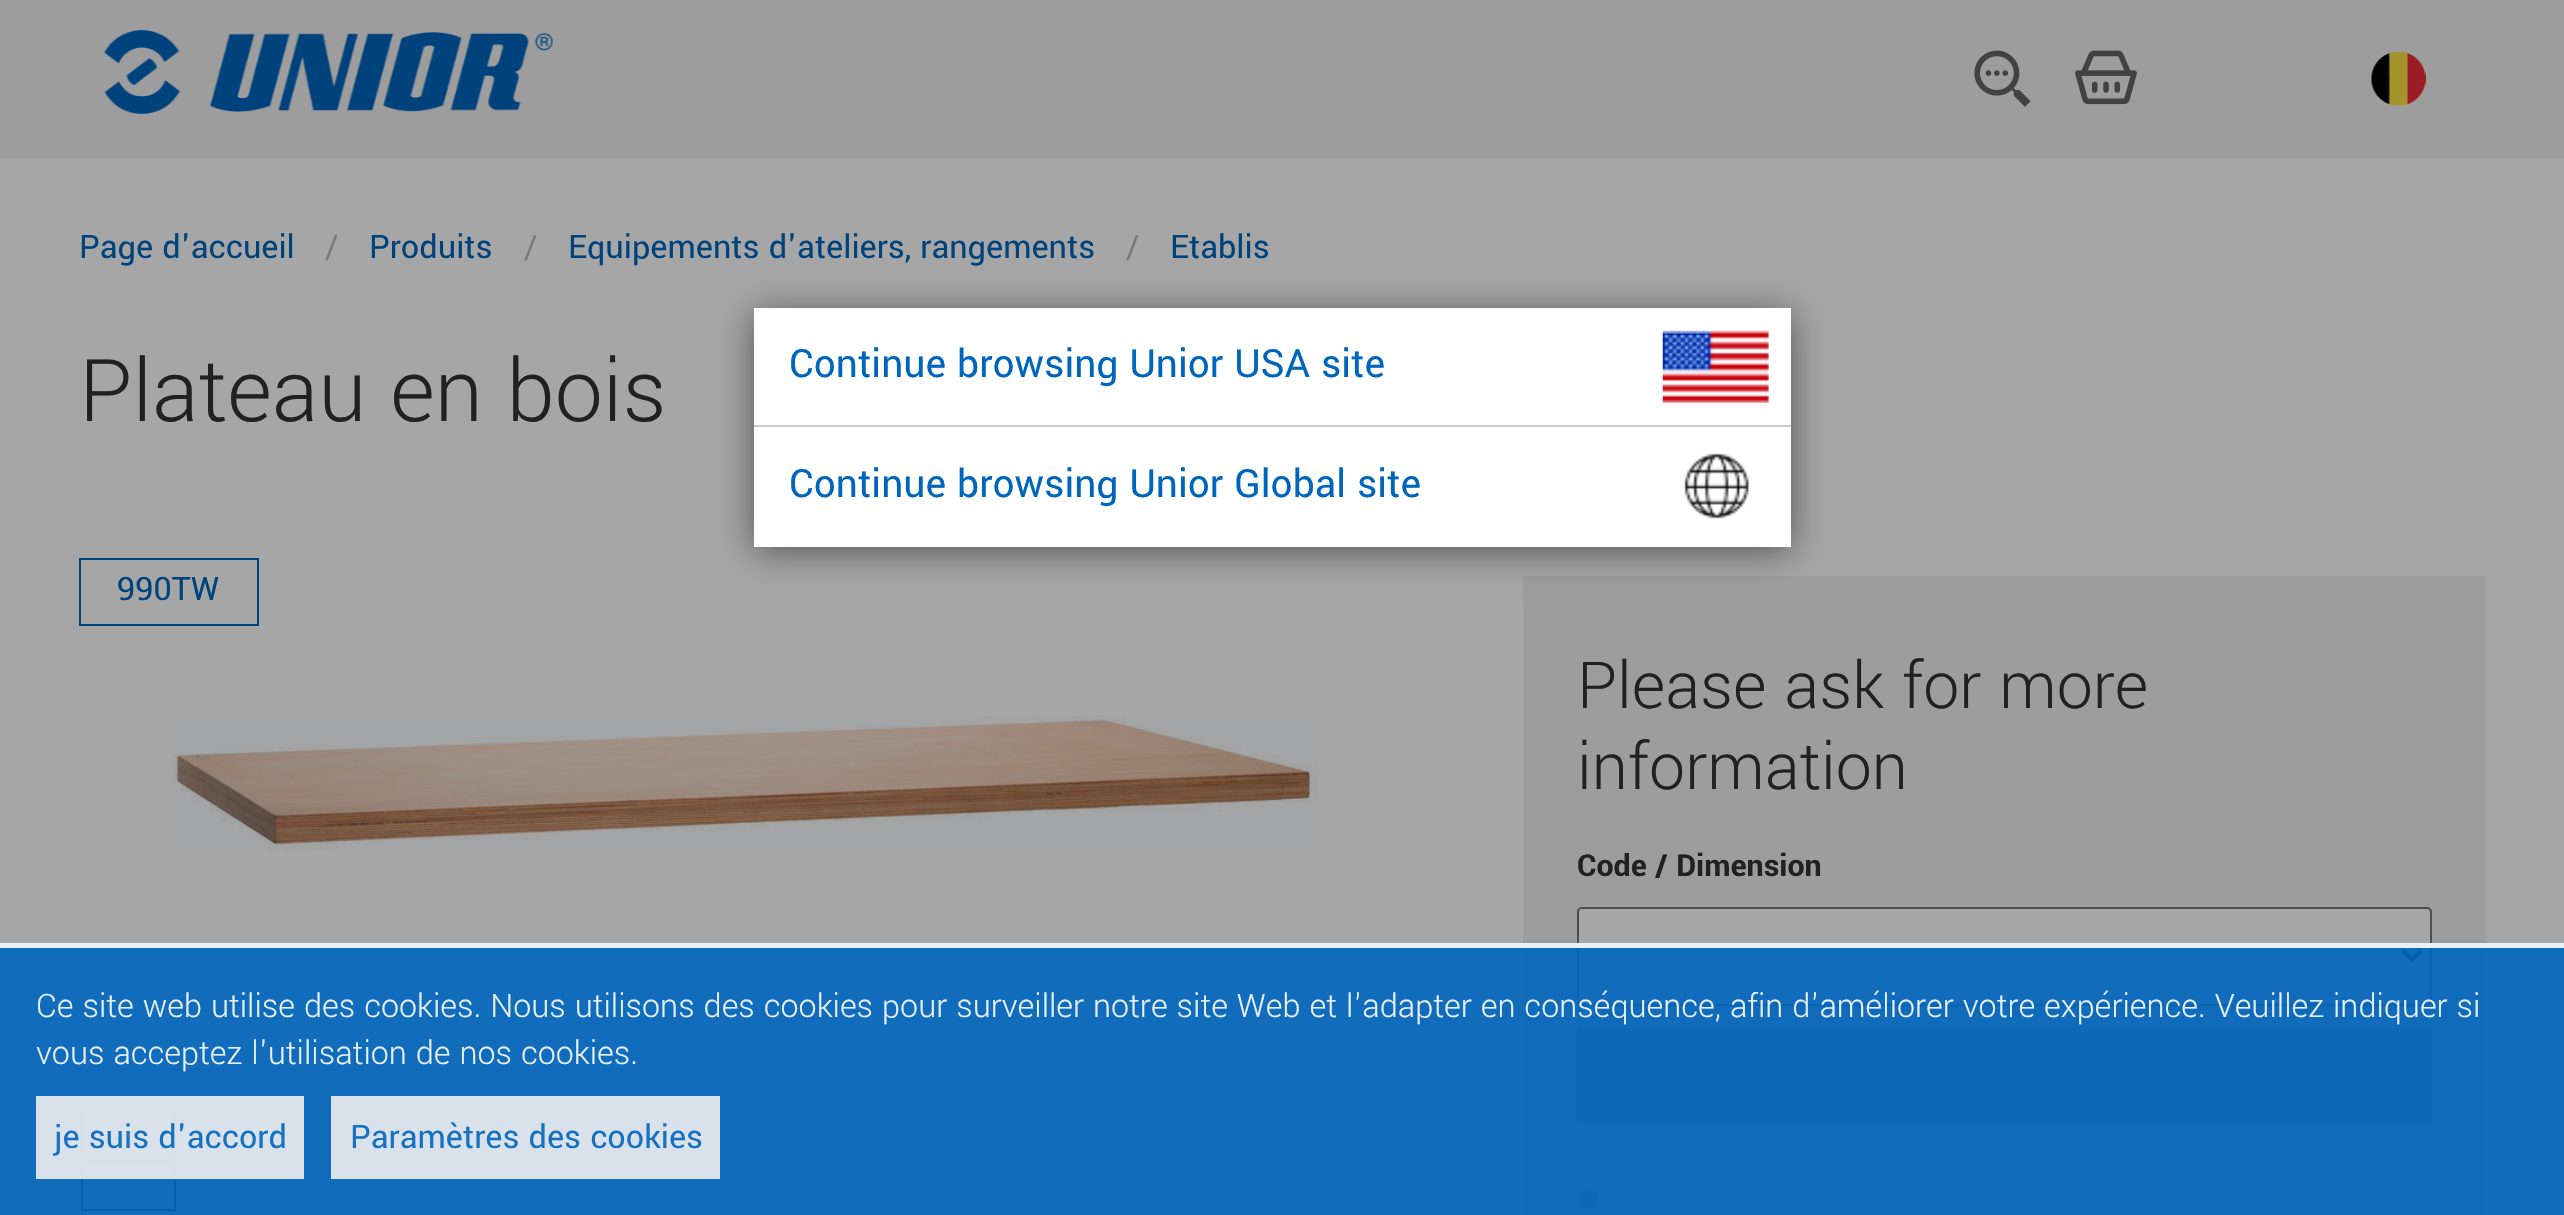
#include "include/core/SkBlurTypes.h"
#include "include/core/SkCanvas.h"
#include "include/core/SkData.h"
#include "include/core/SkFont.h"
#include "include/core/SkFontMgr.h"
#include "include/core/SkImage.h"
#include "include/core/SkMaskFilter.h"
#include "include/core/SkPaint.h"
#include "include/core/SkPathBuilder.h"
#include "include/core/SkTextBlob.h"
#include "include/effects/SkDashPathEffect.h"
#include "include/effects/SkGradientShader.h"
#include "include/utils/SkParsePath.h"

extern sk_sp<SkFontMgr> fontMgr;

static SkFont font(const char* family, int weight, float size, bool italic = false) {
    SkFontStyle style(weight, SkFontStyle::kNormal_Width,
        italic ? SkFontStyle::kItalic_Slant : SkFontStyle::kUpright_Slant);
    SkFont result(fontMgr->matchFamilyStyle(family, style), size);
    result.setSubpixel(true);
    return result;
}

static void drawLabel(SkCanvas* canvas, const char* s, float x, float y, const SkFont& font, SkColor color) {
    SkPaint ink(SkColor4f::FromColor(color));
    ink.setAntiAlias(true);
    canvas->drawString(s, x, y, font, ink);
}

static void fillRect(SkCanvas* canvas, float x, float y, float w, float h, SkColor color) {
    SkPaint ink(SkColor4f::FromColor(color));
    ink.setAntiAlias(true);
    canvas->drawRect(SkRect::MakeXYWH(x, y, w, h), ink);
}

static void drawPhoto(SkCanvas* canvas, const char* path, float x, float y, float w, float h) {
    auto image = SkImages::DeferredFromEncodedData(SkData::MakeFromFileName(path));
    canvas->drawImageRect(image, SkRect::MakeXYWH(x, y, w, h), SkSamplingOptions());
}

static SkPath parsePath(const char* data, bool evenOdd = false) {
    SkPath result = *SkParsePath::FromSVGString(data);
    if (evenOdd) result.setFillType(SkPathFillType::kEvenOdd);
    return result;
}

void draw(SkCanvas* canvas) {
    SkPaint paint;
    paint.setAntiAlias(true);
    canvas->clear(0xFFA6A6A6);
    fillRect(canvas, 0, 0, 2564, 158, 0xFF9D9D9D);
    drawPhoto(canvas, "assets/img1.png", 104, 30, 450, 84);
    drawPhoto(canvas, "assets/img2.png", 1974, 50, 57, 57);
    drawPhoto(canvas, "assets/img3.png", 2075, 50, 62, 55);
    drawPhoto(canvas, "assets/img4.png", 2371, 52, 55, 54);
    SkFont font1 = font("Yantramanav", 400, 36);
    drawLabel(canvas, "Page d'accueil", 79, 258, font1, 0xFF00427B);
    drawLabel(canvas, "/", 325, 258, font1, 0xFF7A7A7A);
    drawLabel(canvas, "Produits", 369, 258, font1, 0xFF00427B);
    drawLabel(canvas, "/", 524, 258, font1, 0xFF7A7A7A);
    drawLabel(canvas, "Equipements d'ateliers, rangements", 568, 258, font1, 0xFF00427B);
    drawLabel(canvas, "/", 1126, 258, font1, 0xFF7A7A7A);
    drawLabel(canvas, "Etablis", 1170, 258, font1, 0xFF00427B);
    SkFont font2 = font("Yantramanav", 300, 96);
    drawLabel(canvas, "Plateau en bois", 79, 421, font2, 0xFF212121);
    paint.setStroke(true);
    paint.setStrokeWidth(2);
    paint.setColor(0xFF00427B);
    canvas->drawRect(SkRect::MakeXYWH(80, 559, 178, 66), paint);
    drawLabel(canvas, "990TW", 117, 600, font1, 0xFF00427B);
    drawPhoto(canvas, "assets/img5.png", 172, 715, 1147, 136);
    fillRect(canvas, 1523, 576, 963, 639, 0xFF9D9D9D);
    SkFont font3 = font("Yantramanav", 300, 72);
    drawLabel(canvas, "Please ask for more", 1577, 708, font3, 0xFF212121);
    drawLabel(canvas, "information", 1577, 789, font3, 0xFF212121);
    SkFont font4 = font("Yantramanav", 700, 33.75f);
    drawLabel(canvas, "Code / Dimension", 1577, 876, font4, 0xFF212121);
    paint.setStroke(false);
    paint.setColor(0xFFA6A6A6);
    canvas->drawRoundRect(SkRect::MakeXYWH(1578, 908, 853, 97), 4, 4, paint);
    paint.setStroke(true);
    paint.setColor(0xFF4D4D4D);
    canvas->drawRoundRect(SkRect::MakeXYWH(1578, 908, 853, 97), 4, 4, paint);
    paint.setStrokeWidth(4.5f);
    paint.setColor(0xFF212121);
    canvas->drawPath(parsePath("M2403 950.5L2412 959.5L2421 950.5"), paint);
    fillRect(canvas, 1577, 1028, 855, 95, 0xFF858585);
    paint.setStroke(false);
    paint.setColor(0xFF858585);
    canvas->drawPath(parsePath("M1588.5 1190C1576 1190 1576 1208.5 1588.5 1208.5C1601 1208.5 1601 1190 1588.5 1190Z"), paint);
    fillRect(canvas, 79, 1069, 1325, 2, 0xFF929292);
    paint.setStroke(true);
    paint.setStrokeWidth(2);
    paint.setColor(0xFF212121);
    canvas->drawRect(SkRect::MakeXYWH(82, 1108, 93, 54), paint);
    canvas->drawRect(SkRect::MakeXYWH(82, 1155, 93, 55), paint);
    paint.setStroke(false);
    paint.setColor(0x80000000);
    paint.setMaskFilter(SkMaskFilter::MakeBlur(kNormal_SkBlurStyle, 17));
    canvas->drawRect(SkRect::MakeXYWH(754, 313, 1037, 238), paint);
    paint.setMaskFilter(nullptr);
    fillRect(canvas, 754, 308, 1037, 239, 0xFFFFFFFF);
    SkFont font5 = font("Yantramanav", 400, 43.25f);
    drawLabel(canvas, "Continue browsing Unior USA site", 789, 377, font5, 0xFF0065BD);
    drawPhoto(canvas, "assets/img6.png", 1662, 330, 107, 73);
    fillRect(canvas, 754, 425, 1037, 2, 0xFFCCCCCC);
    drawLabel(canvas, "Continue browsing Unior Global site", 789, 497, font5, 0xFF0065BD);
    drawPhoto(canvas, "assets/img7.png", 1684, 453, 66, 66);
    fillRect(canvas, 0, 943, 2564, 272, 0xE60065BD);
    fillRect(canvas, 0, 943, 2564, 5, 0xE6FFFFFF);
    SkFont font6 = font("Yantramanav", 300, 36);
    drawLabel(canvas, "Ce site web utilise des cookies. Nous utilisons des cookies pour surveiller notre site Web et l'adapter en conséquence, afin d'améliorer votre expérience. Veuillez indiquer si", 36, 1017, font6, 0xFFE7F0F8);
    drawLabel(canvas, "vous acceptez l'utilisation de nos cookies.", 36, 1064, font6, 0xFFE7F0F8);
    fillRect(canvas, 36, 1096, 268, 83, 0xE6EEEEEE);
    drawLabel(canvas, "je suis d'accord", 54, 1148, font1, 0xFF1671C1);
    fillRect(canvas, 331, 1096, 389, 83, 0xE6EEEEEE);
    drawLabel(canvas, "Paramètres des cookies", 350, 1148, font1, 0xFF1671C1);
}
